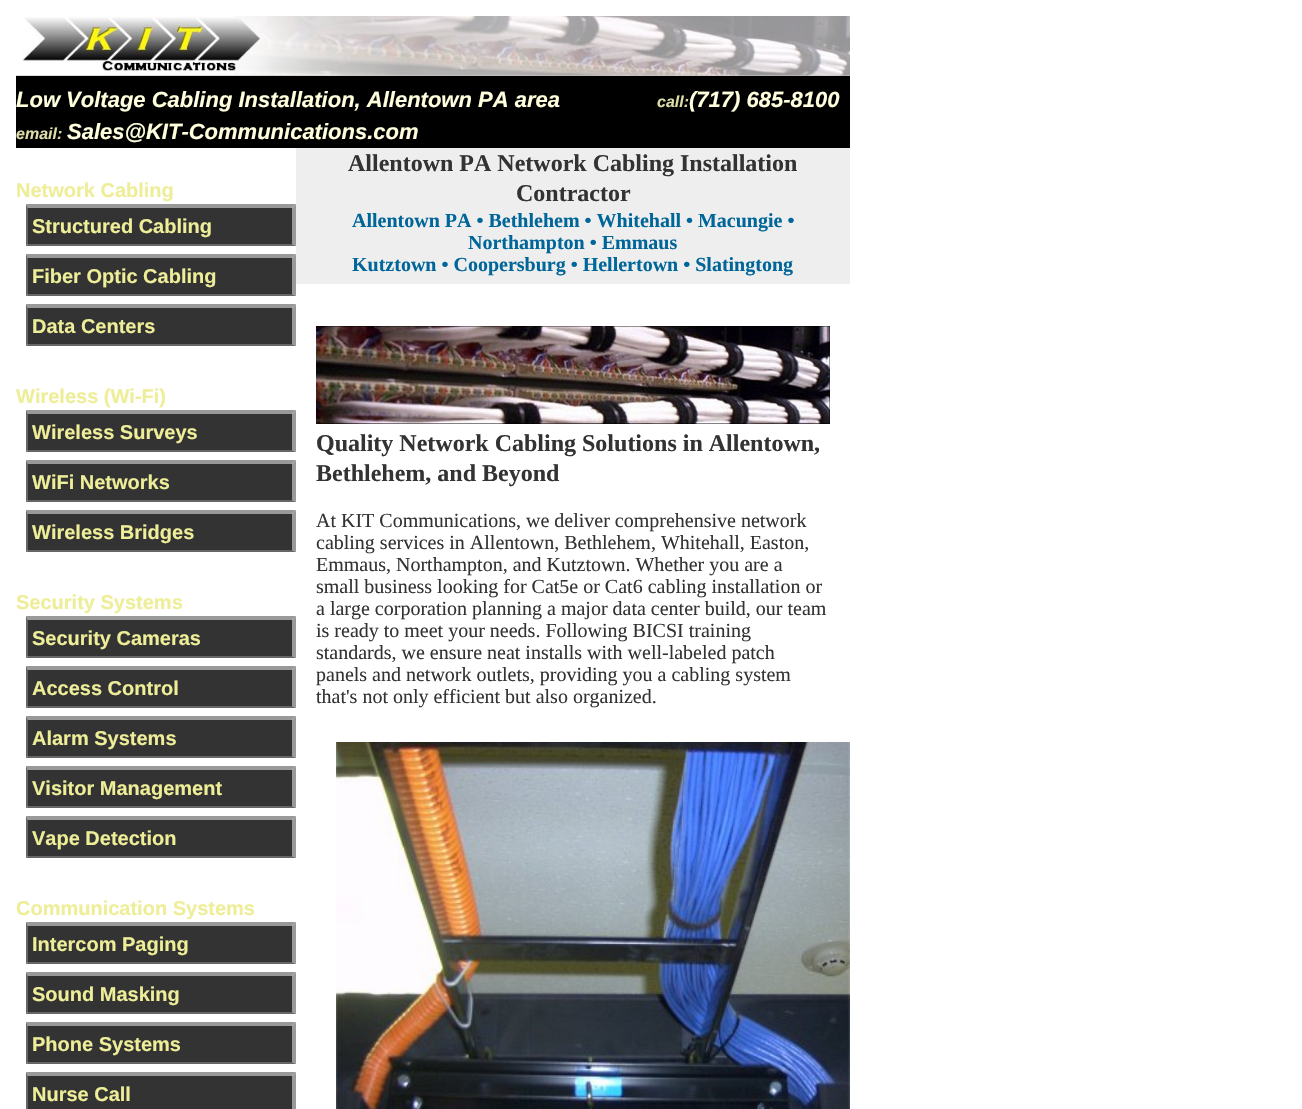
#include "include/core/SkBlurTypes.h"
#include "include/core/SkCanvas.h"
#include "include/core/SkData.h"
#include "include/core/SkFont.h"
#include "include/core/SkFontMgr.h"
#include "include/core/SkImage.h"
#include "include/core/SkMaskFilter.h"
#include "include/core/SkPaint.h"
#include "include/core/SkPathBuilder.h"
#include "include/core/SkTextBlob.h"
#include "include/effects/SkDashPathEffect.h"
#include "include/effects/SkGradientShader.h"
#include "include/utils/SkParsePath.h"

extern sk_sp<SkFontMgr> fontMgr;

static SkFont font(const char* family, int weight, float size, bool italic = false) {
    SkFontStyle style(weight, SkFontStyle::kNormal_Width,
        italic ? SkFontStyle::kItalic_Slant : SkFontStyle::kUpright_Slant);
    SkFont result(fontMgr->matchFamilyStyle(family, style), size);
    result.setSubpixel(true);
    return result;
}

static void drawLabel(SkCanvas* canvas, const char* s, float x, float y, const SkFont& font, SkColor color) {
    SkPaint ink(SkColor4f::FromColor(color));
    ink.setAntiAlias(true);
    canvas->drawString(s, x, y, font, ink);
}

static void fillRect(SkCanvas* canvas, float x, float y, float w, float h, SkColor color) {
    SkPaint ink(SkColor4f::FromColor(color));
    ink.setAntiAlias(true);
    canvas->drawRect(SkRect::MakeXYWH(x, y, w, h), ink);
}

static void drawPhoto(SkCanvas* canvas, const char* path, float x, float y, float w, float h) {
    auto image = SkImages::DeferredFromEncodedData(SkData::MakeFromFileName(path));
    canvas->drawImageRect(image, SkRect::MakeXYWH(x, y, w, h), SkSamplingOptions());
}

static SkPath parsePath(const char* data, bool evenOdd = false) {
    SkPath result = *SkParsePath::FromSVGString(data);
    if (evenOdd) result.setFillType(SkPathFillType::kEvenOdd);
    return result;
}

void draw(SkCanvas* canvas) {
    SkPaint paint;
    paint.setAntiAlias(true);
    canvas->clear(0xFFFFFFFF);
    fillRect(canvas, 16, 76, 834, 72, 0xFF000000);
    drawPhoto(canvas, "assets/img1.png", 16, 16, 834, 60);
    SkFont font1 = font("Liberation Sans", 700, 22, true);
    drawLabel(canvas, "Low Voltage Cabling Installation, Allentown PA area", 16, 107, font1, 0xFFFFFFDD);
    SkFont font2 = font("Liberation Sans", 700, 16, true);
    drawLabel(canvas, "call:", 657, 107, font2, 0xFFDDDDAA);
    drawLabel(canvas, "(717) 685-8100", 689, 107, font1, 0xFFFFFFDD);
    drawLabel(canvas, "email:", 16, 139, font2, 0xFFDDDDAA);
    drawLabel(canvas, "Sales@KIT-Communications.com", 67, 139, font1, 0xFFFFFFDD);
    SkFont font3 = font("Liberation Sans", 700, 20);
    drawLabel(canvas, "Network Cabling", 16, 197, font3, 0xFFEEEE99);
    fillRect(canvas, 28, 208, 264, 36, 0xFF333333);
    paint.setColor(0xFF999999);
    canvas->drawPath(parsePath("M26 204H296L292 208H28Z"), paint);
    canvas->drawPath(parsePath("M296 204V246L292 244V208Z"), paint);
    paint.setColor(0xFF666666);
    canvas->drawPath(parsePath("M296 246H26L28 244H292Z"), paint);
    canvas->drawPath(parsePath("M26 246V204L28 208V244Z"), paint);
    drawLabel(canvas, "Structured Cabling", 32, 233, font3, 0xFFEEEE99);
    fillRect(canvas, 28, 258, 264, 36, 0xFF333333);
    paint.setColor(0xFF999999);
    canvas->drawPath(parsePath("M26 254H296L292 258H28Z"), paint);
    canvas->drawPath(parsePath("M296 254V296L292 294V258Z"), paint);
    paint.setColor(0xFF666666);
    canvas->drawPath(parsePath("M296 296H26L28 294H292Z"), paint);
    canvas->drawPath(parsePath("M26 296V254L28 258V294Z"), paint);
    drawLabel(canvas, "Fiber Optic Cabling", 32, 283, font3, 0xFFEEEE99);
    fillRect(canvas, 28, 308, 264, 36, 0xFF333333);
    paint.setColor(0xFF999999);
    canvas->drawPath(parsePath("M26 304H296L292 308H28Z"), paint);
    canvas->drawPath(parsePath("M296 304V346L292 344V308Z"), paint);
    paint.setColor(0xFF666666);
    canvas->drawPath(parsePath("M296 346H26L28 344H292Z"), paint);
    canvas->drawPath(parsePath("M26 346V304L28 308V344Z"), paint);
    drawLabel(canvas, "Data Centers", 32, 333, font3, 0xFFEEEE99);
    drawLabel(canvas, "Wireless (Wi-Fi)", 16, 403, font3, 0xFFEEEE99);
    fillRect(canvas, 28, 414, 264, 36, 0xFF333333);
    paint.setColor(0xFF999999);
    canvas->drawPath(parsePath("M26 410H296L292 414H28Z"), paint);
    canvas->drawPath(parsePath("M296 410V452L292 450V414Z"), paint);
    paint.setColor(0xFF666666);
    canvas->drawPath(parsePath("M296 452H26L28 450H292Z"), paint);
    canvas->drawPath(parsePath("M26 452V410L28 414V450Z"), paint);
    drawLabel(canvas, "Wireless Surveys", 32, 439, font3, 0xFFEEEE99);
    fillRect(canvas, 28, 464, 264, 36, 0xFF333333);
    paint.setColor(0xFF999999);
    canvas->drawPath(parsePath("M26 460H296L292 464H28Z"), paint);
    canvas->drawPath(parsePath("M296 460V502L292 500V464Z"), paint);
    paint.setColor(0xFF666666);
    canvas->drawPath(parsePath("M296 502H26L28 500H292Z"), paint);
    canvas->drawPath(parsePath("M26 502V460L28 464V500Z"), paint);
    drawLabel(canvas, "WiFi Networks", 32, 489, font3, 0xFFEEEE99);
    fillRect(canvas, 28, 514, 264, 36, 0xFF333333);
    paint.setColor(0xFF999999);
    canvas->drawPath(parsePath("M26 510H296L292 514H28Z"), paint);
    canvas->drawPath(parsePath("M296 510V552L292 550V514Z"), paint);
    paint.setColor(0xFF666666);
    canvas->drawPath(parsePath("M296 552H26L28 550H292Z"), paint);
    canvas->drawPath(parsePath("M26 552V510L28 514V550Z"), paint);
    drawLabel(canvas, "Wireless Bridges", 32, 539, font3, 0xFFEEEE99);
    drawLabel(canvas, "Security Systems", 16, 609, font3, 0xFFEEEE99);
    fillRect(canvas, 28, 620, 264, 36, 0xFF333333);
    paint.setColor(0xFF999999);
    canvas->drawPath(parsePath("M26 616H296L292 620H28Z"), paint);
    canvas->drawPath(parsePath("M296 616V658L292 656V620Z"), paint);
    paint.setColor(0xFF666666);
    canvas->drawPath(parsePath("M296 658H26L28 656H292Z"), paint);
    canvas->drawPath(parsePath("M26 658V616L28 620V656Z"), paint);
    drawLabel(canvas, "Security Cameras", 32, 645, font3, 0xFFEEEE99);
    fillRect(canvas, 28, 670, 264, 36, 0xFF333333);
    paint.setColor(0xFF999999);
    canvas->drawPath(parsePath("M26 666H296L292 670H28Z"), paint);
    canvas->drawPath(parsePath("M296 666V708L292 706V670Z"), paint);
    paint.setColor(0xFF666666);
    canvas->drawPath(parsePath("M296 708H26L28 706H292Z"), paint);
    canvas->drawPath(parsePath("M26 708V666L28 670V706Z"), paint);
    drawLabel(canvas, "Access Control", 32, 695, font3, 0xFFEEEE99);
    fillRect(canvas, 28, 720, 264, 36, 0xFF333333);
    paint.setColor(0xFF999999);
    canvas->drawPath(parsePath("M26 716H296L292 720H28Z"), paint);
    canvas->drawPath(parsePath("M296 716V758L292 756V720Z"), paint);
    paint.setColor(0xFF666666);
    canvas->drawPath(parsePath("M296 758H26L28 756H292Z"), paint);
    canvas->drawPath(parsePath("M26 758V716L28 720V756Z"), paint);
    drawLabel(canvas, "Alarm Systems", 32, 745, font3, 0xFFEEEE99);
    fillRect(canvas, 28, 770, 264, 36, 0xFF333333);
    paint.setColor(0xFF999999);
    canvas->drawPath(parsePath("M26 766H296L292 770H28Z"), paint);
    canvas->drawPath(parsePath("M296 766V808L292 806V770Z"), paint);
    paint.setColor(0xFF666666);
    canvas->drawPath(parsePath("M296 808H26L28 806H292Z"), paint);
    canvas->drawPath(parsePath("M26 808V766L28 770V806Z"), paint);
    drawLabel(canvas, "Visitor Management", 32, 795, font3, 0xFFEEEE99);
    fillRect(canvas, 28, 820, 264, 36, 0xFF333333);
    paint.setColor(0xFF999999);
    canvas->drawPath(parsePath("M26 816H296L292 820H28Z"), paint);
    canvas->drawPath(parsePath("M296 816V858L292 856V820Z"), paint);
    paint.setColor(0xFF666666);
    canvas->drawPath(parsePath("M296 858H26L28 856H292Z"), paint);
    canvas->drawPath(parsePath("M26 858V816L28 820V856Z"), paint);
    drawLabel(canvas, "Vape Detection", 32, 845, font3, 0xFFEEEE99);
    drawLabel(canvas, "Communication Systems", 16, 915, font3, 0xFFEEEE99);
    fillRect(canvas, 28, 926, 264, 36, 0xFF333333);
    paint.setColor(0xFF999999);
    canvas->drawPath(parsePath("M26 922H296L292 926H28Z"), paint);
    canvas->drawPath(parsePath("M296 922V964L292 962V926Z"), paint);
    paint.setColor(0xFF666666);
    canvas->drawPath(parsePath("M296 964H26L28 962H292Z"), paint);
    canvas->drawPath(parsePath("M26 964V922L28 926V962Z"), paint);
    drawLabel(canvas, "Intercom Paging", 32, 951, font3, 0xFFEEEE99);
    fillRect(canvas, 28, 976, 264, 36, 0xFF333333);
    paint.setColor(0xFF999999);
    canvas->drawPath(parsePath("M26 972H296L292 976H28Z"), paint);
    canvas->drawPath(parsePath("M296 972V1014L292 1012V976Z"), paint);
    paint.setColor(0xFF666666);
    canvas->drawPath(parsePath("M296 1014H26L28 1012H292Z"), paint);
    canvas->drawPath(parsePath("M26 1014V972L28 976V1012Z"), paint);
    drawLabel(canvas, "Sound Masking", 32, 1001, font3, 0xFFEEEE99);
    fillRect(canvas, 28, 1026, 264, 36, 0xFF333333);
    paint.setColor(0xFF999999);
    canvas->drawPath(parsePath("M26 1022H296L292 1026H28Z"), paint);
    canvas->drawPath(parsePath("M296 1022V1064L292 1062V1026Z"), paint);
    paint.setColor(0xFF666666);
    canvas->drawPath(parsePath("M296 1064H26L28 1062H292Z"), paint);
    canvas->drawPath(parsePath("M26 1064V1022L28 1026V1062Z"), paint);
    drawLabel(canvas, "Phone Systems", 32, 1051, font3, 0xFFEEEE99);
    fillRect(canvas, 28, 1076, 264, 33, 0xFF333333);
    paint.setColor(0xFF999999);
    canvas->drawPath(parsePath("M26 1072H296L292 1076H28Z"), paint);
    canvas->drawPath(parsePath("M296 1072V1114L292 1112V1076Z"), paint);
    paint.setColor(0xFF666666);
    canvas->drawPath(parsePath("M26 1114V1072L28 1076V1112Z"), paint);
    drawLabel(canvas, "Nurse Call", 32, 1101, font3, 0xFFEEEE99);
    fillRect(canvas, 296, 148, 554, 136, 0xFFEEEEEE);
    SkFont font4 = font("Liberation Serif", 700, 24);
    drawLabel(canvas, "Allentown PA Network Cabling Installation", 348, 171, font4, 0xFF333333);
    drawLabel(canvas, "Contractor", 516, 201, font4, 0xFF333333);
    SkFont font5 = font("Liberation Serif", 700, 20);
    drawLabel(canvas, "Allentown PA • Bethlehem • Whitehall • Macungie •", 352, 227, font5, 0xFF006699);
    drawLabel(canvas, "Northampton • Emmaus", 468, 249, font5, 0xFF006699);
    drawLabel(canvas, "Kutztown • Coopersburg • Hellertown • Slatingtong", 352, 271, font5, 0xFF006699);
    drawPhoto(canvas, "assets/img2.png", 316, 326, 514, 98);
    drawLabel(canvas, "Quality Network Cabling Solutions in Allentown,", 316, 451, font4, 0xFF333333);
    drawLabel(canvas, "Bethlehem, and Beyond", 316, 481, font4, 0xFF333333);
    SkFont font6 = font("Liberation Serif", 400, 20);
    drawLabel(canvas, "At KIT Communications, we deliver comprehensive network", 316, 527, font6, 0xFF333333);
    drawLabel(canvas, "cabling services in Allentown, Bethlehem, Whitehall, Easton,", 316, 549, font6, 0xFF333333);
    drawLabel(canvas, "Emmaus, Northampton, and Kutztown. Whether you are a", 316, 571, font6, 0xFF333333);
    drawLabel(canvas, "small business looking for Cat5e or Cat6 cabling installation or", 316, 593, font6, 0xFF333333);
    drawLabel(canvas, "a large corporation planning a major data center build, our team", 316, 615, font6, 0xFF333333);
    drawLabel(canvas, "is ready to meet your needs. Following BICSI training", 316, 637, font6, 0xFF333333);
    drawLabel(canvas, "standards, we ensure neat installs with well-labeled patch", 316, 659, font6, 0xFF333333);
    drawLabel(canvas, "panels and network outlets, providing you a cabling system", 316, 681, font6, 0xFF333333);
    drawLabel(canvas, "that's not only efficient but also organized.", 316, 703, font6, 0xFF333333);
    drawPhoto(canvas, "assets/img3.png", 336, 742, 514, 367);
}
